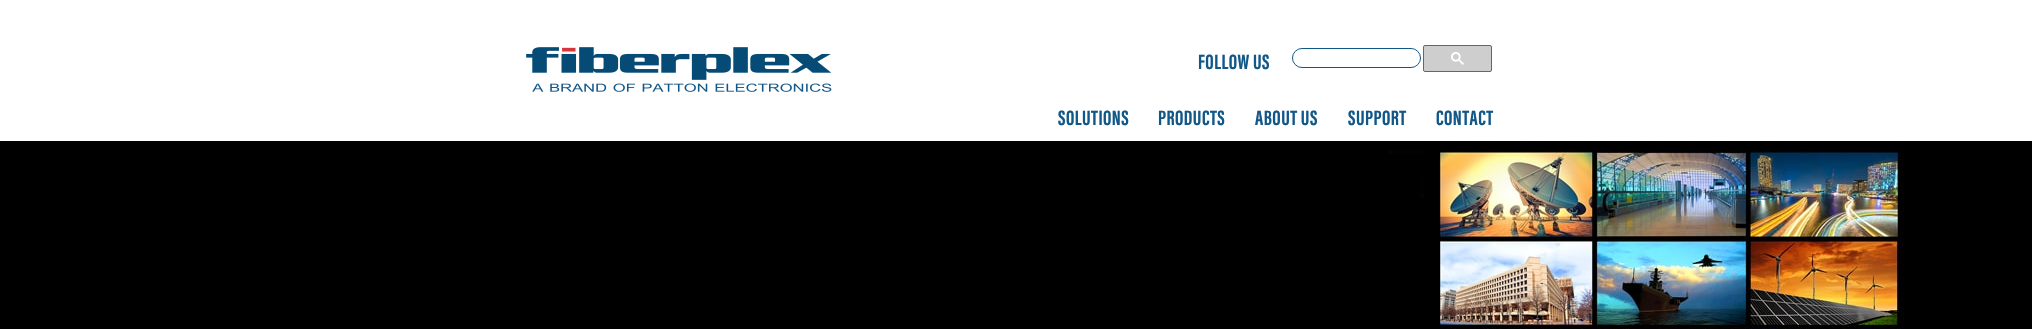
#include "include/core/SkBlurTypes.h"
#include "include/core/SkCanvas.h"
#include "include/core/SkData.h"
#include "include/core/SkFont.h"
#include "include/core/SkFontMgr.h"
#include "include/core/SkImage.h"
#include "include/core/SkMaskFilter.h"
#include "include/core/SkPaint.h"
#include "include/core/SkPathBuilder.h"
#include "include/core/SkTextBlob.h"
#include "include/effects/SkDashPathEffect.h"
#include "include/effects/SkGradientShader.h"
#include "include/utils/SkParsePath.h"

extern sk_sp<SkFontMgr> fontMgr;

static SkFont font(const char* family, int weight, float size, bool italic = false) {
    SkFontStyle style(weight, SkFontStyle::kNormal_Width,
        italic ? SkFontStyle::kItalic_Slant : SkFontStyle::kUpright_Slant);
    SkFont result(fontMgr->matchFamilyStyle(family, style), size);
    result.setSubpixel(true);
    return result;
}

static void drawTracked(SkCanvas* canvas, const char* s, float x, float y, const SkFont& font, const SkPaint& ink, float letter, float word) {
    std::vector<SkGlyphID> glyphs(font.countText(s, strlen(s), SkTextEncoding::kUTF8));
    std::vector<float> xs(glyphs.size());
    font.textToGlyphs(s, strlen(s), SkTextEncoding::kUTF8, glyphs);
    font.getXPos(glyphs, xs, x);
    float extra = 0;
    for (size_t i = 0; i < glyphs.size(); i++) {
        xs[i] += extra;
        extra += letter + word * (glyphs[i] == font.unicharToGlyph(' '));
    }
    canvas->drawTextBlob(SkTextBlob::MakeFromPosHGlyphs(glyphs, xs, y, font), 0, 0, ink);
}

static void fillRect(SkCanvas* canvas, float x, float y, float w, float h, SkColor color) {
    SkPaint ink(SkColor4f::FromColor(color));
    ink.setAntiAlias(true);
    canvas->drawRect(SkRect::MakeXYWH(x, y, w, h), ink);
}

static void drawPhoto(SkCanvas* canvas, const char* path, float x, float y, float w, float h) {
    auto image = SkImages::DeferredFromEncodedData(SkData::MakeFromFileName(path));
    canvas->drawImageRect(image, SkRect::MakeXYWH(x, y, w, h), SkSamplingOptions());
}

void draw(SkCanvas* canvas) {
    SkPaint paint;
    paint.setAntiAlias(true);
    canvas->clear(0xFFFFFFFF);
    drawPhoto(canvas, "assets/img1.png", 526, 47, 306, 45);
    SkFont font1 = font("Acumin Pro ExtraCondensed", 700, 21.5f);
    paint.setColor(0xFF115788);
    drawTracked(canvas, "FOLLOW US", 1198, 69, font1, paint, 0.5f, 0);
    paint.setStroke(true);
    paint.setStrokeWidth(1);
    canvas->drawRoundRect(SkRect::MakeXYWH(1292.5f, 48.5f, 128, 19), 9.5f, 9.5f, paint);
    paint.setStroke(false);
    paint.setColor(0xFFCECECE);
    canvas->drawRoundRect(SkRect::MakeXYWH(1423.5f, 45.5f, 68, 26), 1.5f, 1.5f, paint);
    paint.setStroke(true);
    paint.setColor(0xFF666666);
    canvas->drawRoundRect(SkRect::MakeXYWH(1423.5f, 45.5f, 68, 26), 1.5f, 1.5f, paint);
    drawPhoto(canvas, "assets/img2.png", 1451, 52, 13, 13);
    paint.setStroke(false);
    paint.setColor(0xFF115788);
    drawTracked(canvas, "SOLUTIONS", 1058, 125, font1, paint, 0.5f, 0);
    drawTracked(canvas, "PRODUCTS", 1158, 125, font1, paint, 0.5f, 0);
    drawTracked(canvas, "ABOUT US", 1255, 125, font1, paint, 0.5f, 0);
    drawTracked(canvas, "SUPPORT", 1348, 125, font1, paint, 0.5f, 0);
    drawTracked(canvas, "CONTACT", 1436, 125, font1, paint, 0.5f, 0);
    fillRect(canvas, 0, 141, 2032, 188, 0xFF000000);
    drawPhoto(canvas, "assets/img3.png", 1389, 141, 515, 188);
}
